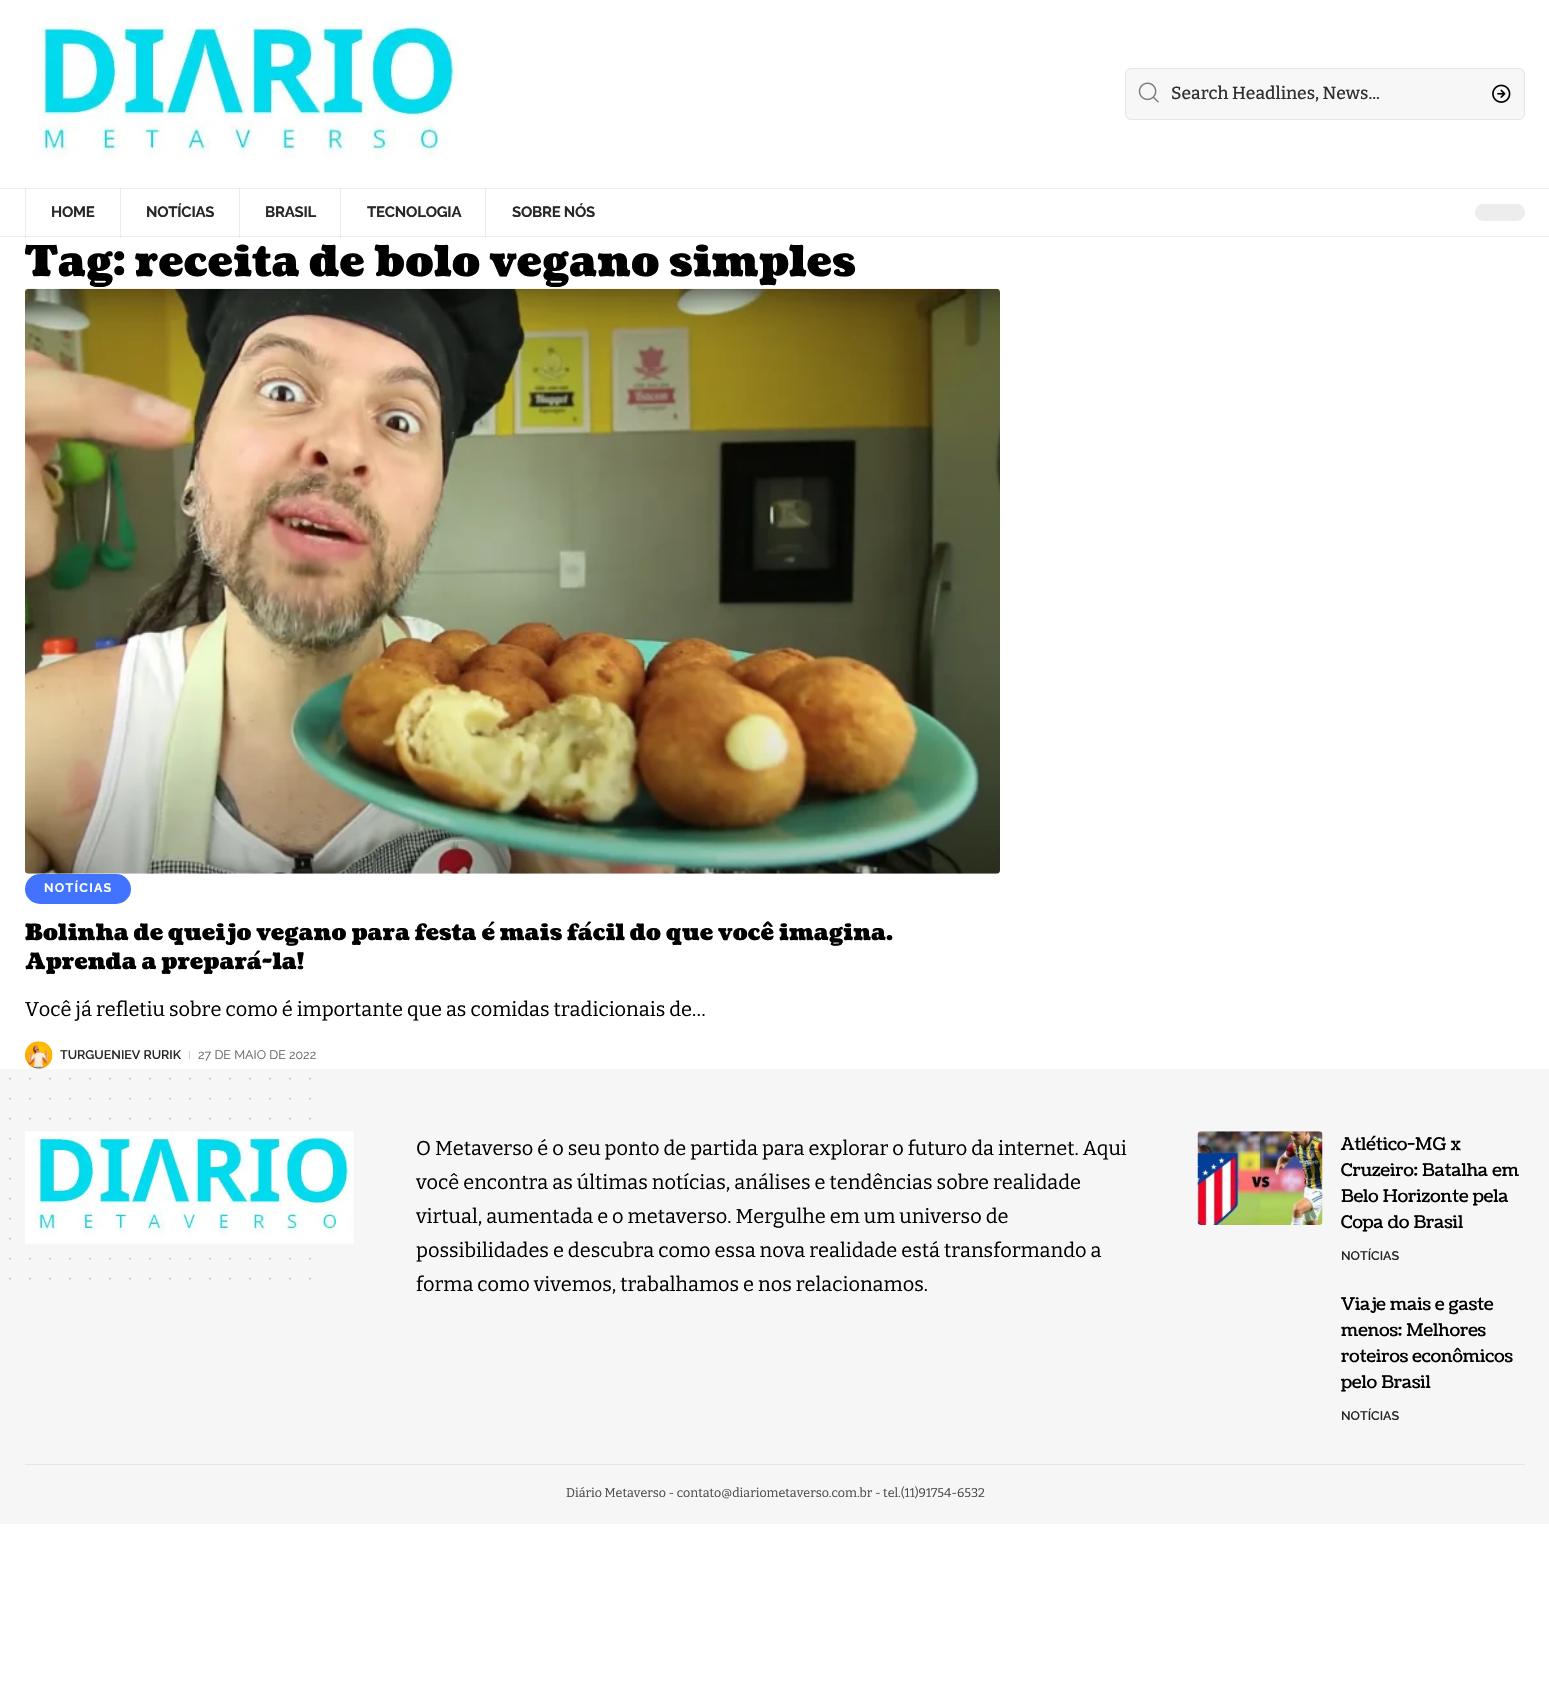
#include "include/core/SkBlurTypes.h"
#include "include/core/SkCanvas.h"
#include "include/core/SkData.h"
#include "include/core/SkFont.h"
#include "include/core/SkFontMgr.h"
#include "include/core/SkImage.h"
#include "include/core/SkMaskFilter.h"
#include "include/core/SkPaint.h"
#include "include/core/SkPathBuilder.h"
#include "include/core/SkTextBlob.h"
#include "include/effects/SkDashPathEffect.h"
#include "include/effects/SkGradientShader.h"
#include "include/utils/SkParsePath.h"

extern sk_sp<SkFontMgr> fontMgr;

static SkFont font(const char* family, int weight, float size, bool italic = false) {
    SkFontStyle style(weight, SkFontStyle::kNormal_Width,
        italic ? SkFontStyle::kItalic_Slant : SkFontStyle::kUpright_Slant);
    SkFont result(fontMgr->matchFamilyStyle(family, style), size);
    result.setSubpixel(true);
    return result;
}

static void drawLabel(SkCanvas* canvas, const char* s, float x, float y, const SkFont& font, SkColor color) {
    SkPaint ink(SkColor4f::FromColor(color));
    ink.setAntiAlias(true);
    canvas->drawString(s, x, y, font, ink);
}

static void drawTracked(SkCanvas* canvas, const char* s, float x, float y, const SkFont& font, const SkPaint& ink, float letter, float word) {
    std::vector<SkGlyphID> glyphs(font.countText(s, strlen(s), SkTextEncoding::kUTF8));
    std::vector<float> xs(glyphs.size());
    font.textToGlyphs(s, strlen(s), SkTextEncoding::kUTF8, glyphs);
    font.getXPos(glyphs, xs, x);
    float extra = 0;
    for (size_t i = 0; i < glyphs.size(); i++) {
        xs[i] += extra;
        extra += letter + word * (glyphs[i] == font.unicharToGlyph(' '));
    }
    canvas->drawTextBlob(SkTextBlob::MakeFromPosHGlyphs(glyphs, xs, y, font), 0, 0, ink);
}

static void fillRect(SkCanvas* canvas, float x, float y, float w, float h, SkColor color) {
    SkPaint ink(SkColor4f::FromColor(color));
    ink.setAntiAlias(true);
    canvas->drawRect(SkRect::MakeXYWH(x, y, w, h), ink);
}

static void fillRRect(SkCanvas* canvas, float x, float y, float w, float h, float radius, SkColor color) {
    SkPaint ink(SkColor4f::FromColor(color));
    ink.setAntiAlias(true);
    canvas->drawRoundRect(SkRect::MakeXYWH(x, y, w, h), radius, radius, ink);
}

static void drawPhoto(SkCanvas* canvas, const char* path, float x, float y, float w, float h) {
    auto image = SkImages::DeferredFromEncodedData(SkData::MakeFromFileName(path));
    canvas->drawImageRect(image, SkRect::MakeXYWH(x, y, w, h), SkSamplingOptions());
}

static SkPath parsePath(const char* data, bool evenOdd = false) {
    SkPath result = *SkParsePath::FromSVGString(data);
    if (evenOdd) result.setFillType(SkPathFillType::kEvenOdd);
    return result;
}

void draw(SkCanvas* canvas) {
    SkPaint paint;
    paint.setAntiAlias(true);
    canvas->clear(0xFFFFFFFF);
    fillRect(canvas, 0, 236, 1549, 1, 0xFFEDEDED);
    fillRect(canvas, 485, 188, 1, 50, 0xFFEDEDED);
    fillRect(canvas, 485, 236, 1, 1, 0xFFDEDEDE);
    fillRect(canvas, 340, 188, 1, 50, 0xFFEDEDED);
    fillRect(canvas, 340, 236, 1, 1, 0xFFDEDEDE);
    fillRect(canvas, 239, 188, 1, 50, 0xFFEDEDED);
    fillRect(canvas, 239, 236, 1, 1, 0xFFDEDEDE);
    fillRect(canvas, 120, 188, 1, 50, 0xFFEDEDED);
    fillRect(canvas, 120, 236, 1, 1, 0xFFDEDEDE);
    fillRect(canvas, 25, 188, 1, 50, 0xFFEDEDED);
    fillRect(canvas, 25, 236, 1, 1, 0xFFDEDEDE);
    drawPhoto(canvas, "assets/img1.png", 38, 19, 421, 139);
    paint.setColor(0xFFF7F7F7);
    canvas->drawRoundRect(SkRect::MakeXYWH(1125.5f, 68.5f, 399, 51), 5.5f, 5.5f, paint);
    paint.setStroke(true);
    paint.setStrokeWidth(1);
    paint.setColor(0xFFE6E6E6);
    canvas->drawRoundRect(SkRect::MakeXYWH(1125.5f, 68.5f, 399, 51), 5.5f, 5.5f, paint);
    drawPhoto(canvas, "assets/img2.png", 1138, 82, 21, 21);
    SkFont font1 = font("Bitter", 500, 17.5f);
    drawLabel(canvas, "Search Headlines, News...", 1171, 99, font1, 0xFF313131);
    drawPhoto(canvas, "assets/img3.png", 1492, 84, 19, 19);
    fillRect(canvas, 0, 188, 1549, 1, 0xFFEDEDED);
    fillRect(canvas, 485, 188, 1, 1, 0xFFDEDEDE);
    fillRect(canvas, 340, 188, 1, 1, 0xFFDEDEDE);
    fillRect(canvas, 239, 188, 1, 1, 0xFFDEDEDE);
    fillRect(canvas, 120, 188, 1, 1, 0xFFDEDEDE);
    fillRect(canvas, 25, 188, 1, 1, 0xFFDEDEDE);
    SkFont font2 = font("Raleway", 700, 15);
    paint.setStroke(false);
    paint.setColor(0xFF282828);
    drawTracked(canvas, "HOME", 51, 217, font2, paint, -0.25f, 0);
    drawTracked(canvas, "NOTÍCIAS", 146, 217, font2, paint, -0.25f, 0);
    drawTracked(canvas, "BRASIL", 265, 217, font2, paint, -0.25f, 0);
    drawTracked(canvas, "TECNOLOGIA", 367, 217, font2, paint, -0.25f, 0);
    drawTracked(canvas, "SOBRE NÓS", 512, 217, font2, paint, -0.25f, 0);
    fillRRect(canvas, 1475, 204, 50, 17, 8.5f, 0xFFEDEDED);
    SkFont font3 = font("Coustard", 900, 42.5f);
    drawLabel(canvas, "Tag: receita de bolo vegano simples", 25, 276, font3, 0xFF000000);
    drawPhoto(canvas, "assets/img4.png", 25, 288, 975, 586);
    fillRRect(canvas, 25, 874, 106, 30, 15, 0xFF4173FF);
    SkFont font4 = font("Raleway", 700, 12.5f);
    paint.setColor(0xFFFFFFFF);
    drawTracked(canvas, "NOTÍCIAS", 44, 892, font4, paint, 1.25f, 0);
    SkFont font5 = font("Coustard", 900, 22.5f);
    drawLabel(canvas, "Bolinha de queijo vegano para festa é mais fácil do que você imagina.", 25, 940, font5, 0xFF000000);
    drawLabel(canvas, "Aprenda a prepará-la!", 25, 969, font5, 0xFF000000);
    SkFont font6 = font("Bitter", 400, 20);
    drawLabel(canvas, "Você já refletiu sobre como é importante que as comidas tradicionais de…", 25, 1016, font6, 0xFF000000);
    drawPhoto(canvas, "assets/img5.png", 25, 1041, 28, 28);
    SkFont font7 = font("Raleway", 600, 12.5f);
    drawLabel(canvas, "TURGUENIEV RURIK", 60, 1059, font7, 0xFF282828);
    fillRect(canvas, 189, 1051, 1, 8, 0xFFD1D1D1);
    SkFont font8 = font("Raleway", 400, 12.5f);
    drawLabel(canvas, "27 DE MAIO DE 2022", 198, 1059, font8, 0xFF666666);
    fillRect(canvas, 0, 1069, 1549, 455, 0xFFF6F6F6);
    paint.setStroke(true);
    paint.setStrokeWidth(1.9f);
    paint.setStrokeCap(SkPaint::kRound_Cap);
    paint.setColor(0xFFC5C5C5);
    paint.setPathEffect(SkDashPathEffect::Make({{0, 20}}, 0));
    canvas->drawPath(parsePath("M10 1078.8H310.2"), paint);
    paint.setPathEffect(nullptr);
    paint.setPathEffect(SkDashPathEffect::Make({{0, 20}}, 0));
    canvas->drawPath(parsePath("M10 1098.8H310.2"), paint);
    paint.setPathEffect(nullptr);
    paint.setPathEffect(SkDashPathEffect::Make({{0, 20}}, 0));
    canvas->drawPath(parsePath("M10 1118.8H310.2"), paint);
    paint.setPathEffect(nullptr);
    paint.setPathEffect(SkDashPathEffect::Make({{0, 20}}, 0));
    canvas->drawPath(parsePath("M10 1138.8H310.2"), paint);
    paint.setPathEffect(nullptr);
    paint.setPathEffect(SkDashPathEffect::Make({{0, 20}}, 0));
    canvas->drawPath(parsePath("M10 1158.8H310.2"), paint);
    paint.setPathEffect(nullptr);
    paint.setPathEffect(SkDashPathEffect::Make({{0, 20}}, 0));
    canvas->drawPath(parsePath("M10 1178.8H310.2"), paint);
    paint.setPathEffect(nullptr);
    paint.setPathEffect(SkDashPathEffect::Make({{0, 20}}, 0));
    canvas->drawPath(parsePath("M10 1198.8H310.2"), paint);
    paint.setPathEffect(nullptr);
    paint.setPathEffect(SkDashPathEffect::Make({{0, 20}}, 0));
    canvas->drawPath(parsePath("M10 1218.8H310.2"), paint);
    paint.setPathEffect(nullptr);
    paint.setPathEffect(SkDashPathEffect::Make({{0, 20}}, 0));
    canvas->drawPath(parsePath("M10 1238.8H310.2"), paint);
    paint.setPathEffect(nullptr);
    paint.setPathEffect(SkDashPathEffect::Make({{0, 20}}, 0));
    canvas->drawPath(parsePath("M10 1258.8H310.2"), paint);
    paint.setPathEffect(nullptr);
    paint.setPathEffect(SkDashPathEffect::Make({{0, 20}}, 0));
    canvas->drawPath(parsePath("M10 1278.8H310.2"), paint);
    paint.setPathEffect(nullptr);
    drawPhoto(canvas, "assets/img6.png", 25, 1131, 329, 113);
    drawLabel(canvas, "O Metaverso é o seu ponto de partida para explorar o futuro da internet. Aqui", 416, 1155, font6, 0xFF000000);
    drawLabel(canvas, "você encontra as últimas notícias, análises e tendências sobre realidade", 416, 1189, font6, 0xFF000000);
    drawLabel(canvas, "virtual, aumentada e o metaverso. Mergulhe em um universo de", 416, 1223, font6, 0xFF000000);
    drawLabel(canvas, "possibilidades e descubra como essa nova realidade está transformando a", 416, 1257, font6, 0xFF000000);
    drawLabel(canvas, "forma como vivemos, trabalhamos e nos relacionamos.", 416, 1291, font6, 0xFF000000);
    drawPhoto(canvas, "assets/img7.png", 1197, 1131, 126, 94);
    SkFont font9 = font("Coustard", 400, 17.5f);
    drawLabel(canvas, "Atlético-MG x", 1341, 1150, font9, 0xFF000000);
    drawLabel(canvas, "Cruzeiro: Batalha em", 1341, 1176, font9, 0xFF000000);
    drawLabel(canvas, "Belo Horizonte pela", 1341, 1202, font9, 0xFF000000);
    drawLabel(canvas, "Copa do Brasil", 1341, 1228, font9, 0xFF000000);
    drawLabel(canvas, "NOTÍCIAS", 1341, 1260, font7, 0xFF282828);
    drawLabel(canvas, "Viaje mais e gaste", 1341, 1310, font9, 0xFF000000);
    drawLabel(canvas, "menos: Melhores", 1341, 1336, font9, 0xFF000000);
    drawLabel(canvas, "roteiros econômicos", 1341, 1362, font9, 0xFF000000);
    drawLabel(canvas, "pelo Brasil", 1341, 1388, font9, 0xFF000000);
    drawLabel(canvas, "NOTÍCIAS", 1341, 1420, font7, 0xFF282828);
    fillRect(canvas, 25, 1464, 1500, 1, 0xFFE6E6E6);
    SkFont font10 = font("Bitter", 400, 12.5f);
    drawLabel(canvas, "Diário Metaverso - contato@diariometaverso.com.br - tel.(11)91754-6532", 566, 1497, font10, 0xFF4A4A4A);
}
